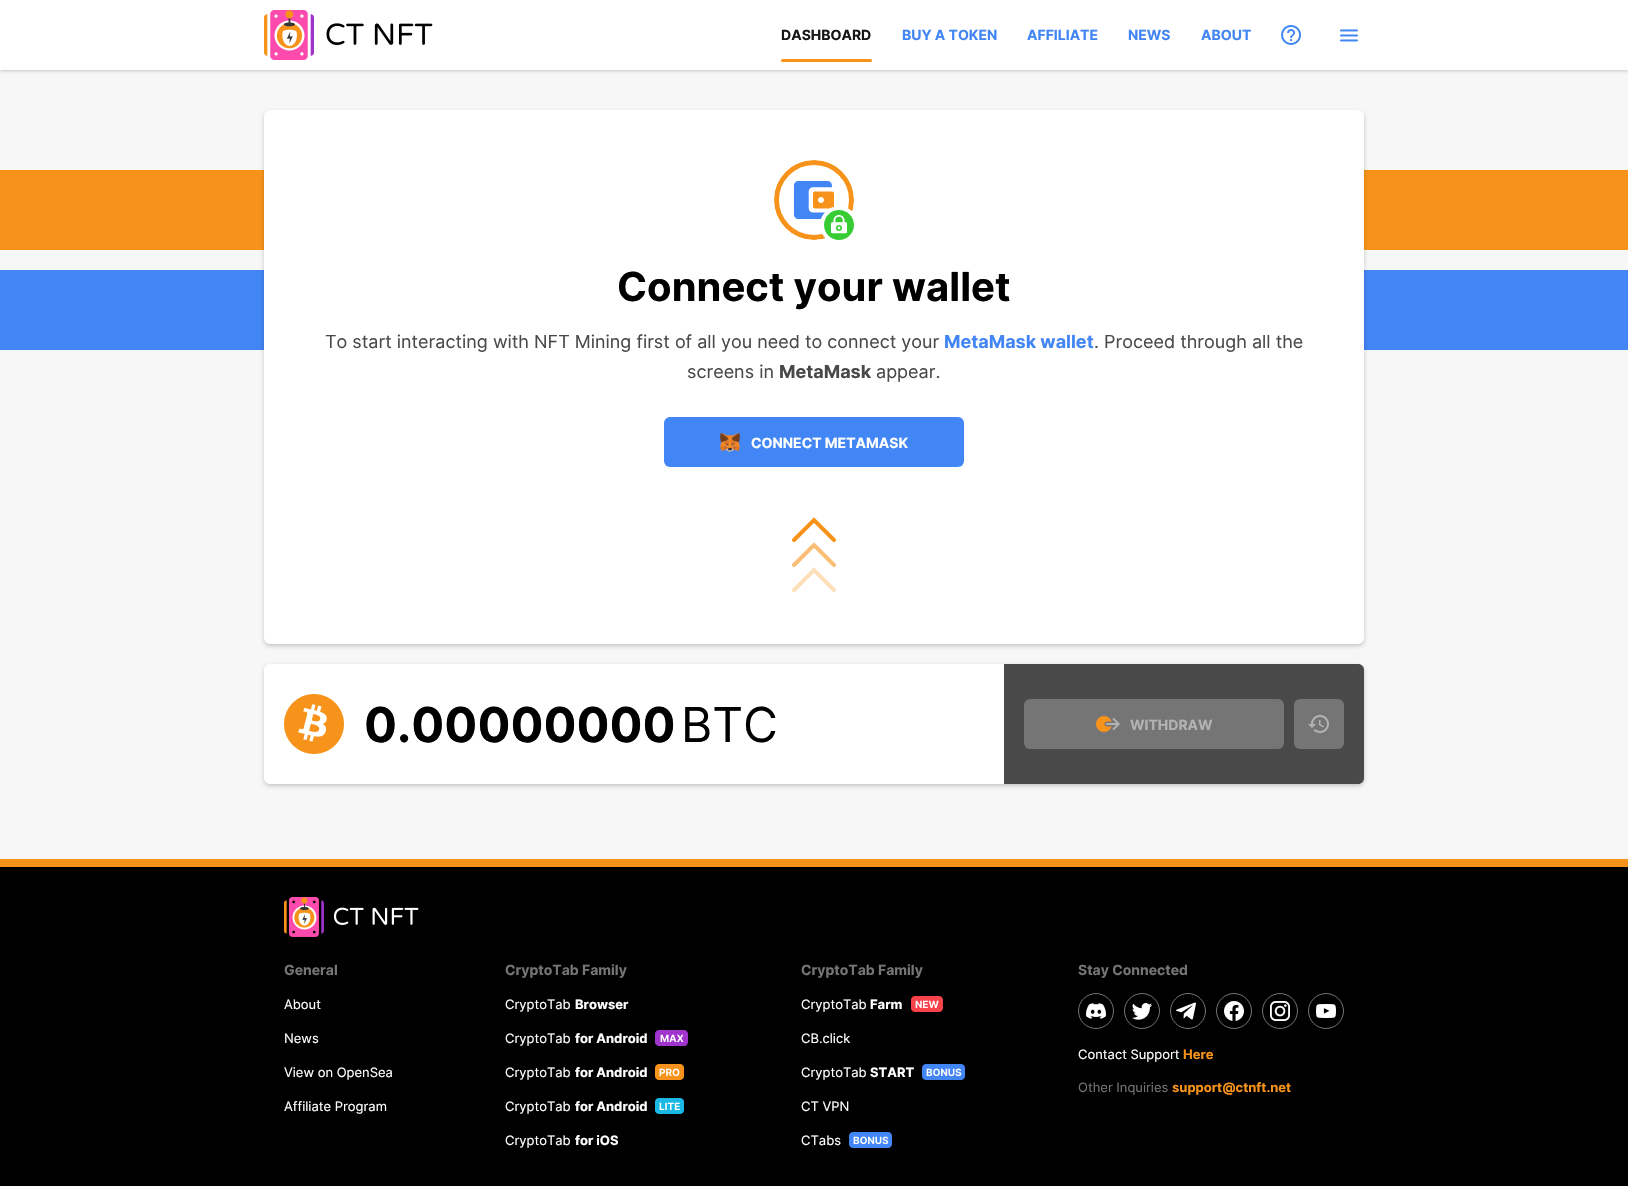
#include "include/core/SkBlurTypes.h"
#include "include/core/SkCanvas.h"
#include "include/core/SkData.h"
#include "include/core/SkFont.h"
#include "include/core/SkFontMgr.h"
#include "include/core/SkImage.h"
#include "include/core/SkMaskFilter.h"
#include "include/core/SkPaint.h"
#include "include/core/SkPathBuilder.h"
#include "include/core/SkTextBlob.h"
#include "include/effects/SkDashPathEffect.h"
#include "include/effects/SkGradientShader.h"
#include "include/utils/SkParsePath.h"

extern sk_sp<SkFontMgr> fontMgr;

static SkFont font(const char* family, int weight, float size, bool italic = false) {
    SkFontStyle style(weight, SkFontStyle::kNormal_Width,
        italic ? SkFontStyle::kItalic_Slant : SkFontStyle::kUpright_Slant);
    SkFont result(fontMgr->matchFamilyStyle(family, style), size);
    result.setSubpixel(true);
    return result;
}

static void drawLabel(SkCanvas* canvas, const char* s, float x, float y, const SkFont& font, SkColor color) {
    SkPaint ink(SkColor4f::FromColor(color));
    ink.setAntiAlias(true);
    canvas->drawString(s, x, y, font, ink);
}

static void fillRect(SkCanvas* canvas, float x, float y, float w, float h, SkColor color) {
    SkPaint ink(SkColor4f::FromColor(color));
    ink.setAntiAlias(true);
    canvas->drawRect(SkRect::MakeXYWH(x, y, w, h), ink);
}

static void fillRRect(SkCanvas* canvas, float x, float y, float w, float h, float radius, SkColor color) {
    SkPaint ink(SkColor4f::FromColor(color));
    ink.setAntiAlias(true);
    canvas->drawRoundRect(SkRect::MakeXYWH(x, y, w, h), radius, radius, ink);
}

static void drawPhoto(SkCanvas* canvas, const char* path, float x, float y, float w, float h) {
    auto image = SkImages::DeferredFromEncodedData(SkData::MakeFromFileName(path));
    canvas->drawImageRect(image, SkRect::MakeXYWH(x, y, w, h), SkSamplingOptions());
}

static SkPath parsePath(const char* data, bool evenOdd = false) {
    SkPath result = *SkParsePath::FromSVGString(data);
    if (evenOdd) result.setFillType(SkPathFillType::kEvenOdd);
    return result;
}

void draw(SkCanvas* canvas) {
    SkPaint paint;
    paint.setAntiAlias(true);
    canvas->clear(0xFFF7F7F7);
    paint.setColor(0x33000000);
    paint.setMaskFilter(SkMaskFilter::MakeBlur(kNormal_SkBlurStyle, 1.5f));
    canvas->drawRect(SkRect::MakeXYWH(0, 1, 1628, 70), paint);
    paint.setMaskFilter(nullptr);
    fillRect(canvas, 0, 0, 1628, 70, 0xFFFFFFFF);
    drawPhoto(canvas, "assets/img1.png", 264, 10, 169, 50);
    SkFont font1 = font("Inter", 700, 14);
    drawLabel(canvas, "DASHBOARD", 781, 40, font1, 0xFF171717);
    fillRRect(canvas, 781, 59, 91, 3, 1.5f, 0xFFF7931A);
    drawLabel(canvas, "BUY A TOKEN", 902, 40, font1, 0xFF4285F4);
    drawLabel(canvas, "AFFILIATE", 1027, 40, font1, 0xFF4285F4);
    drawLabel(canvas, "NEWS", 1128, 40, font1, 0xFF4285F4);
    drawLabel(canvas, "ABOUT", 1201, 40, font1, 0xFF4285F4);
    drawPhoto(canvas, "assets/img2.png", 1281, 25, 20, 20);
    drawPhoto(canvas, "assets/img3.png", 1340, 29, 18, 13);
    fillRect(canvas, 0, 170, 1628, 80, 0xFFF7931A);
    fillRect(canvas, 0, 270, 1628, 80, 0xFF4285F4);
    paint.setMaskFilter(SkMaskFilter::MakeBlur(kNormal_SkBlurStyle, 2));
    canvas->drawRoundRect(SkRect::MakeXYWH(264, 112, 1100, 534), 6, 6, paint);
    paint.setMaskFilter(nullptr);
    fillRRect(canvas, 264, 110, 1100, 534, 6, 0xFFFFFFFF);
    drawPhoto(canvas, "assets/img4.png", 774, 160, 80, 80);
    SkFont font2 = font("Inter", 700, 40);
    drawLabel(canvas, "Connect your wallet", 617, 301, font2, 0xFF000000);
    SkFont font3 = font("Inter", 400, 18);
    drawLabel(canvas, "To start interacting with NFT Mining first of all you need to connect your", 325, 348, font3, 0xFF494949);
    SkFont font4 = font("Inter", 700, 18);
    drawLabel(canvas, "MetaMask wallet", 944, 348, font4, 0xFF4285F4);
    drawLabel(canvas, ". Proceed through all the", 1094, 348, font3, 0xFF494949);
    drawLabel(canvas, "screens in", 687, 378, font3, 0xFF494949);
    drawLabel(canvas, "MetaMask", 779, 378, font4, 0xFF494949);
    drawLabel(canvas, "appear.", 876, 378, font3, 0xFF494949);
    fillRRect(canvas, 664, 417, 300, 50, 6, 0xFF4285F4);
    drawPhoto(canvas, "assets/img5.png", 720, 433, 20, 19);
    drawLabel(canvas, "CONNECT METAMASK", 751, 448, font1, 0xFFFFFFFF);
    paint.setStroke(true);
    paint.setStrokeWidth(4);
    paint.setStrokeCap(SkPaint::kRound_Cap);
    paint.setColor(0xFFF7931A);
    canvas->drawPath(parsePath("M834 540L814 520L794 540"), paint);
    paint.setColor(0xFFFABE76);
    canvas->drawPath(parsePath("M834 565L814 545L794 565"), paint);
    paint.setColor(0xFFFDDFBA);
    canvas->drawPath(parsePath("M834 590L814 570L794 590"), paint);
    paint.setStroke(false);
    paint.setColor(0x33000000);
    paint.setMaskFilter(SkMaskFilter::MakeBlur(kNormal_SkBlurStyle, 2));
    canvas->drawRoundRect(SkRect::MakeXYWH(264, 666, 1100, 120), 6, 6, paint);
    paint.setMaskFilter(nullptr);
    paint.setColor(0xFFFFFFFF);
    canvas->drawPath(parsePath("M270 664H1004V784H270C266.5 784 264 781.5 264 778V670C264 666.5 266.5 664 270 664Z"), paint);
    drawPhoto(canvas, "assets/img6.png", 284, 694, 60, 60);
    SkFont font5 = font("Inter", 700, 48);
    drawLabel(canvas, "0.00000000", 364, 742, font5, 0xFF000000);
    SkFont font6 = font("Inter", 400, 48);
    drawLabel(canvas, "BTC", 681, 742, font6, 0xFF000000);
    paint.setColor(0xFF494949);
    canvas->drawPath(parsePath("M1004 664H1358C1361.5 664 1364 666.5 1364 670V778C1364 781.5 1361.5 784 1358 784H1004Z"), paint);
    fillRRect(canvas, 1024, 699, 260, 50, 6, 0xFF757575);
    drawPhoto(canvas, "assets/img7.png", 1096, 716, 24, 16);
    drawLabel(canvas, "WITHDRAW", 1130, 730, font1, 0xFFB3B3B3);
    fillRRect(canvas, 1294, 699, 50, 50, 6, 0xFF757575);
    drawPhoto(canvas, "assets/img8.png", 1308, 715, 21, 18);
    fillRect(canvas, 0, 867, 1628, 319, 0xFF000000);
    fillRect(canvas, 0, 859, 1628, 8, 0xFFF7931A);
    drawPhoto(canvas, "assets/img9.png", 284, 897, 135, 40);
    drawLabel(canvas, "General", 284, 975, font1, 0xFF757575);
    SkFont font7 = font("Inter", 400, 13);
    drawLabel(canvas, "About", 284, 1009, font7, 0xFFFFFFFF);
    drawLabel(canvas, "News", 284, 1043, font7, 0xFFFFFFFF);
    drawLabel(canvas, "View on OpenSea", 284, 1077, font7, 0xFFFFFFFF);
    drawLabel(canvas, "Affiliate Program", 284, 1111, font7, 0xFFFFFFFF);
    drawLabel(canvas, "CryptoTab Family", 505, 975, font1, 0xFF757575);
    drawLabel(canvas, "CryptoTab", 505, 1009, font7, 0xFFFFFFFF);
    SkFont font8 = font("Inter", 700, 13);
    drawLabel(canvas, "Browser", 575, 1009, font8, 0xFFFFFFFF);
    drawLabel(canvas, "CryptoTab", 505, 1043, font7, 0xFFFFFFFF);
    drawLabel(canvas, "for Android", 575, 1043, font8, 0xFFFFFFFF);
    drawPhoto(canvas, "assets/img10.png", 655, 1030, 33, 16);
    drawLabel(canvas, "CryptoTab", 505, 1077, font7, 0xFFFFFFFF);
    drawLabel(canvas, "for Android", 575, 1077, font8, 0xFFFFFFFF);
    drawPhoto(canvas, "assets/img11.png", 655, 1064, 29, 16);
    drawLabel(canvas, "CryptoTab", 505, 1111, font7, 0xFFFFFFFF);
    drawLabel(canvas, "for Android", 575, 1111, font8, 0xFFFFFFFF);
    drawPhoto(canvas, "assets/img12.png", 655, 1098, 29, 16);
    drawLabel(canvas, "CryptoTab", 505, 1145, font7, 0xFFFFFFFF);
    drawLabel(canvas, "for iOS", 575, 1145, font8, 0xFFFFFFFF);
    drawLabel(canvas, "CryptoTab Family", 801, 975, font1, 0xFF757575);
    drawLabel(canvas, "CryptoTab", 801, 1009, font7, 0xFFFFFFFF);
    drawLabel(canvas, "Farm", 870, 1009, font8, 0xFFFFFFFF);
    drawPhoto(canvas, "assets/img13.png", 911, 996, 32, 16);
    drawLabel(canvas, "CB.click", 801, 1043, font7, 0xFFFFFFFF);
    drawLabel(canvas, "CryptoTab", 801, 1077, font7, 0xFFFFFFFF);
    drawLabel(canvas, "START", 870, 1077, font8, 0xFFFFFFFF);
    drawPhoto(canvas, "assets/img14.png", 922, 1064, 43, 16);
    drawLabel(canvas, "CT VPN", 801, 1111, font7, 0xFFFFFFFF);
    drawLabel(canvas, "CTabs", 801, 1145, font7, 0xFFFFFFFF);
    drawPhoto(canvas, "assets/img14.png", 849, 1132, 43, 16);
    drawLabel(canvas, "Stay Connected", 1078, 975, font1, 0xFF757575);
    paint.setStroke(true);
    paint.setStrokeWidth(1);
    paint.setStrokeCap(SkPaint::kButt_Cap);
    paint.setColor(0xFF757575);
    canvas->drawCircle(1096, 1011, 17.5f, paint);
    drawPhoto(canvas, "assets/img15.png", 1086, 1003, 20, 16);
    canvas->drawCircle(1142, 1011, 17.5f, paint);
    drawPhoto(canvas, "assets/img16.png", 1132, 1003, 20, 17);
    canvas->drawCircle(1188, 1011, 17.5f, paint);
    drawPhoto(canvas, "assets/img17.png", 1176, 1002, 20, 18);
    canvas->drawCircle(1234, 1011, 17.5f, paint);
    drawPhoto(canvas, "assets/img18.png", 1224, 1001, 20, 20);
    canvas->drawCircle(1280, 1011, 17.5f, paint);
    drawPhoto(canvas, "assets/img19.png", 1270, 1001, 20, 20);
    canvas->drawCircle(1326, 1011, 17.5f, paint);
    drawPhoto(canvas, "assets/img20.png", 1316, 1004, 20, 14);
    drawLabel(canvas, "Contact Support", 1078, 1059, font7, 0xFFFFFFFF);
    drawLabel(canvas, "Here", 1183, 1059, font8, 0xFFF7931A);
    drawLabel(canvas, "Other Inquiries", 1078, 1092, font7, 0xFF757575);
    drawLabel(canvas, "support@ctnft.net", 1172, 1092, font8, 0xFFF7931A);
}
